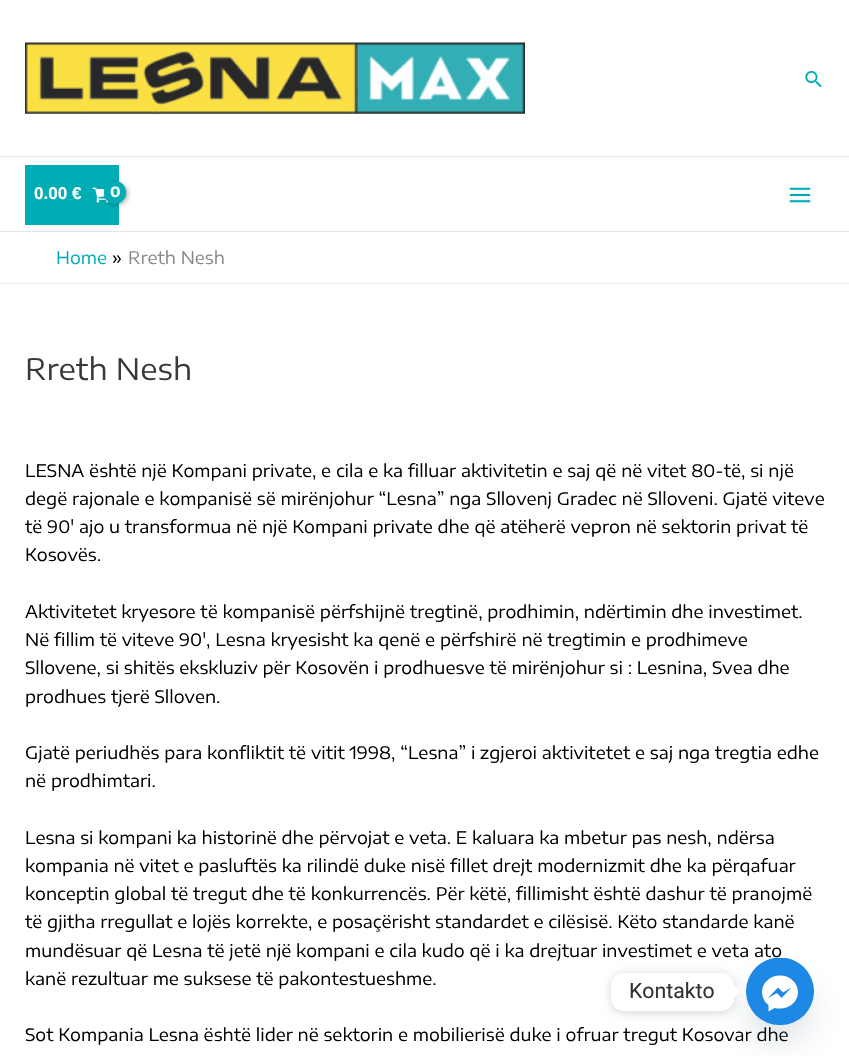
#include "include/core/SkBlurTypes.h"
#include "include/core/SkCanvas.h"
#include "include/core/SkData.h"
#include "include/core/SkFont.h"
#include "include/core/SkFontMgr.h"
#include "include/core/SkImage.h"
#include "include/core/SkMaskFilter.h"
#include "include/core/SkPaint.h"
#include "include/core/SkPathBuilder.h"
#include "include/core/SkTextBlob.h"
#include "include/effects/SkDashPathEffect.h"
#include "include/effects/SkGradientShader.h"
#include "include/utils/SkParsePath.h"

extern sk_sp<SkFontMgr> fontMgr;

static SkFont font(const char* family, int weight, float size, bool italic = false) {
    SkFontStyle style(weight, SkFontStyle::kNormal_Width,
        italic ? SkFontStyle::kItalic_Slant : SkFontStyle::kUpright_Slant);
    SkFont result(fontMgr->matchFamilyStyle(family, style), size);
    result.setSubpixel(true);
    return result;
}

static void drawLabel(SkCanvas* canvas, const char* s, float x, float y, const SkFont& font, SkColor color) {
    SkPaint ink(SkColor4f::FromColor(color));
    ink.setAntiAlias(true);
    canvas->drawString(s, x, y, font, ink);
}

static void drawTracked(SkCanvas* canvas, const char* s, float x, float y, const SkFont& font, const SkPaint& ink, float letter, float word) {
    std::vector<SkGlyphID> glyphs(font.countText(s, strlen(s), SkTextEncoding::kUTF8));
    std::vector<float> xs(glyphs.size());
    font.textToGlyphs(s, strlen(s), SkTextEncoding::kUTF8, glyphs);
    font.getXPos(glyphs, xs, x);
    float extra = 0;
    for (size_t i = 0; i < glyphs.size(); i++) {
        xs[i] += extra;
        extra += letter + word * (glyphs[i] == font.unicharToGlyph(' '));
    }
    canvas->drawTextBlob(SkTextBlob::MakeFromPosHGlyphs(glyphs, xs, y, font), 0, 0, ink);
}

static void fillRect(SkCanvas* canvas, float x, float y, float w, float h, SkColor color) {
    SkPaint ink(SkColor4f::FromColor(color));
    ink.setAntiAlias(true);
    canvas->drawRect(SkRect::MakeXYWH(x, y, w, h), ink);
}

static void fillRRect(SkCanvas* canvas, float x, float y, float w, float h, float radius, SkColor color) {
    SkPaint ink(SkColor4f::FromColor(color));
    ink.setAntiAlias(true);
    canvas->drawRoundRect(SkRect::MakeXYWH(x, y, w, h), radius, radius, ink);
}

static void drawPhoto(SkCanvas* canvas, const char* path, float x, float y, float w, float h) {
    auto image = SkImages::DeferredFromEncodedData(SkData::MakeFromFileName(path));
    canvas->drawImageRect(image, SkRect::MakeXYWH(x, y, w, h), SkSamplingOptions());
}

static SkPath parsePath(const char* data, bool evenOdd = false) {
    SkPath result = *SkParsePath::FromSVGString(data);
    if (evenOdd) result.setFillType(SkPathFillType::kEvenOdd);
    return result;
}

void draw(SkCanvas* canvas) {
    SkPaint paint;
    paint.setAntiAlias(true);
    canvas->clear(0xFFFFFFFF);
    fillRect(canvas, 0, 156, 849, 1, 0xFFE5E5E5);
    drawPhoto(canvas, "assets/img1.png", 25, 42, 500, 72);
    drawPhoto(canvas, "assets/img2.png", 805, 70, 17, 18);
    fillRect(canvas, 0, 231, 849, 1, 0xFFE5E5E5);
    fillRect(canvas, 25, 165, 94, 60, 0xFF00ADB5);
    SkFont font1 = font("Liberation Sans", 700, 17.1f);
    drawLabel(canvas, "0.00 €", 34, 199, font1, 0xFFFFFFFF);
    drawPhoto(canvas, "assets/img3.png", 92, 187, 17, 16);
    paint.setColor(0x4D000000);
    paint.setMaskFilter(SkMaskFilter::MakeBlur(kNormal_SkBlurStyle, 2));
    canvas->drawRoundRect(SkRect::MakeXYWH(105, 183, 23, 22), 11, 11, paint);
    paint.setMaskFilter(nullptr);
    fillRRect(canvas, 104, 181, 22, 23, 11, 0xFF00ADB5);
    SkFont font2 = font("Encode Sans Expanded", 700, 14);
    paint.setColor(0xFFFFFFFF);
    drawTracked(canvas, "0", 110, 197, font2, paint, -1, 0);
    drawPhoto(canvas, "assets/img4.png", 789, 187, 22, 16);
    fillRect(canvas, 0, 283, 849, 1, 0xFFEAEAEA);
    SkFont font3 = font("Encode Sans Expanded", 400, 17.1f);
    drawLabel(canvas, "Home", 56, 264, font3, 0xFF00ADB5);
    drawLabel(canvas, "»", 112, 264, font3, 0xFF000000);
    drawLabel(canvas, "Rreth Nesh", 128, 264, font3, 0xFF878787);
    SkFont font4 = font("Encode Sans Expanded", 400, 29.5f);
    drawLabel(canvas, "Rreth Nesh", 25, 380, font4, 0xFF3A3A3A);
    drawLabel(canvas, "LESNA është një Kompani private, e cila e ka filluar aktivitetin e saj që në vitet 80-të, si një", 25, 477, font3, 0xFF000000);
    drawLabel(canvas, "degë rajonale e kompanisë së mirënjohur “Lesna” nga Sllovenj Gradec në Slloveni. Gjatë viteve", 25, 505, font3, 0xFF000000);
    drawLabel(canvas, "të 90′ ajo u transformua në një Kompani private dhe që atëherë vepron në sektorin privat të", 25, 533, font3, 0xFF000000);
    drawLabel(canvas, "Kosovës.", 25, 561, font3, 0xFF000000);
    drawLabel(canvas, "Aktivitetet kryesore të kompanisë përfshijnë tregtinë, prodhimin, ndërtimin dhe investimet.", 25, 618, font3, 0xFF000000);
    drawLabel(canvas, "Në fillim të viteve 90′, Lesna kryesisht ka qenë e përfshirë në tregtimin e prodhimeve", 25, 646, font3, 0xFF000000);
    drawLabel(canvas, "Sllovene, si shitës ekskluziv për Kosovën i prodhuesve të mirënjohur si : Lesnina, Svea dhe", 25, 674, font3, 0xFF000000);
    drawLabel(canvas, "prodhues tjerë Slloven.", 25, 703, font3, 0xFF000000);
    drawLabel(canvas, "Gjatë periudhës para konfliktit të vitit 1998, “Lesna” i zgjeroi aktivitetet e saj nga tregtia edhe", 25, 759, font3, 0xFF000000);
    drawLabel(canvas, "në prodhimtari.", 25, 787, font3, 0xFF000000);
    drawLabel(canvas, "Lesna si kompani ka historinë dhe përvojat e veta. E kaluara ka mbetur pas nesh, ndërsa", 25, 844, font3, 0xFF000000);
    drawLabel(canvas, "kompania në vitet e pasluftës ka rilindë duke nisë fillet drejt modernizmit dhe ka përqafuar", 25, 872, font3, 0xFF000000);
    drawLabel(canvas, "konceptin global të tregut dhe të konkurrencës. Për këtë, fillimisht është dashur të pranojmë", 25, 900, font3, 0xFF000000);
    drawLabel(canvas, "të gjitha rregullat e lojës korrekte, e posaçërisht standardet e cilësisë. Këto standarde kanë", 25, 928, font3, 0xFF000000);
    drawLabel(canvas, "mundësuar që Lesna të jetë një kompani e cila kudo që i ka drejtuar investimet e veta ato", 25, 957, font3, 0xFF000000);
    drawLabel(canvas, "kanë rezultuar me suksese të pakontestueshme.", 25, 985, font3, 0xFF000000);
    drawLabel(canvas, "Sot Kompania Lesna është lider në sektorin e mobilierisë duke i ofruar tregut Kosovar dhe", 25, 1041, font3, 0xFF000000);
    paint.setColor(0x2949687E);
    paint.setMaskFilter(SkMaskFilter::MakeBlur(kNormal_SkBlurStyle, 15));
    canvas->drawRoundRect(SkRect::MakeXYWH(746, 978, 68, 67), 33.5f, 33.5f, paint);
    paint.setMaskFilter(nullptr);
    fillRRect(canvas, 746, 958, 68, 67, 33.5f, 0xFF1E88E5);
    canvas->save();
    canvas->clipRect(SkRect::MakeXYWH(746, 958, 68, 67));
    paint.setColor(0xFF1E88E5);
    canvas->drawCircle(780, 991, 33.5f, paint);
    canvas->restore();
    paint.setColor(0x26000000);
    paint.setMaskFilter(SkMaskFilter::MakeBlur(kNormal_SkBlurStyle, 5));
    canvas->drawRoundRect(SkRect::MakeXYWH(611, 974, 123, 39), 13, 13, paint);
    paint.setMaskFilter(nullptr);
    fillRRect(canvas, 611, 973, 123, 38, 13, 0xFFFFFFFF);
    SkFont font5 = font("Roboto", 400, 21.25f);
    drawLabel(canvas, "Kontakto", 629, 998, font5, 0xFF333333);
    paint.setColor(0xFFFFFFFF);
    canvas->drawPath(parsePath("M734 998V985.5L740 992Z"), paint);
    canvas->drawPath(parsePath("M762 992C762 983 770 975.5 780 975.5C790 975.5 798 983 798 992C798 1001.5 790 1008.5 780 1008.5C778 1008.5 776.5 1008.5 774.5 1008L768.5 1011.5V1005C764.5 1002 762 997 762 992ZM777 993L781.5 998L791.5 987.5L783 992.5L778 987.5L768 998Z", true), paint);
}
